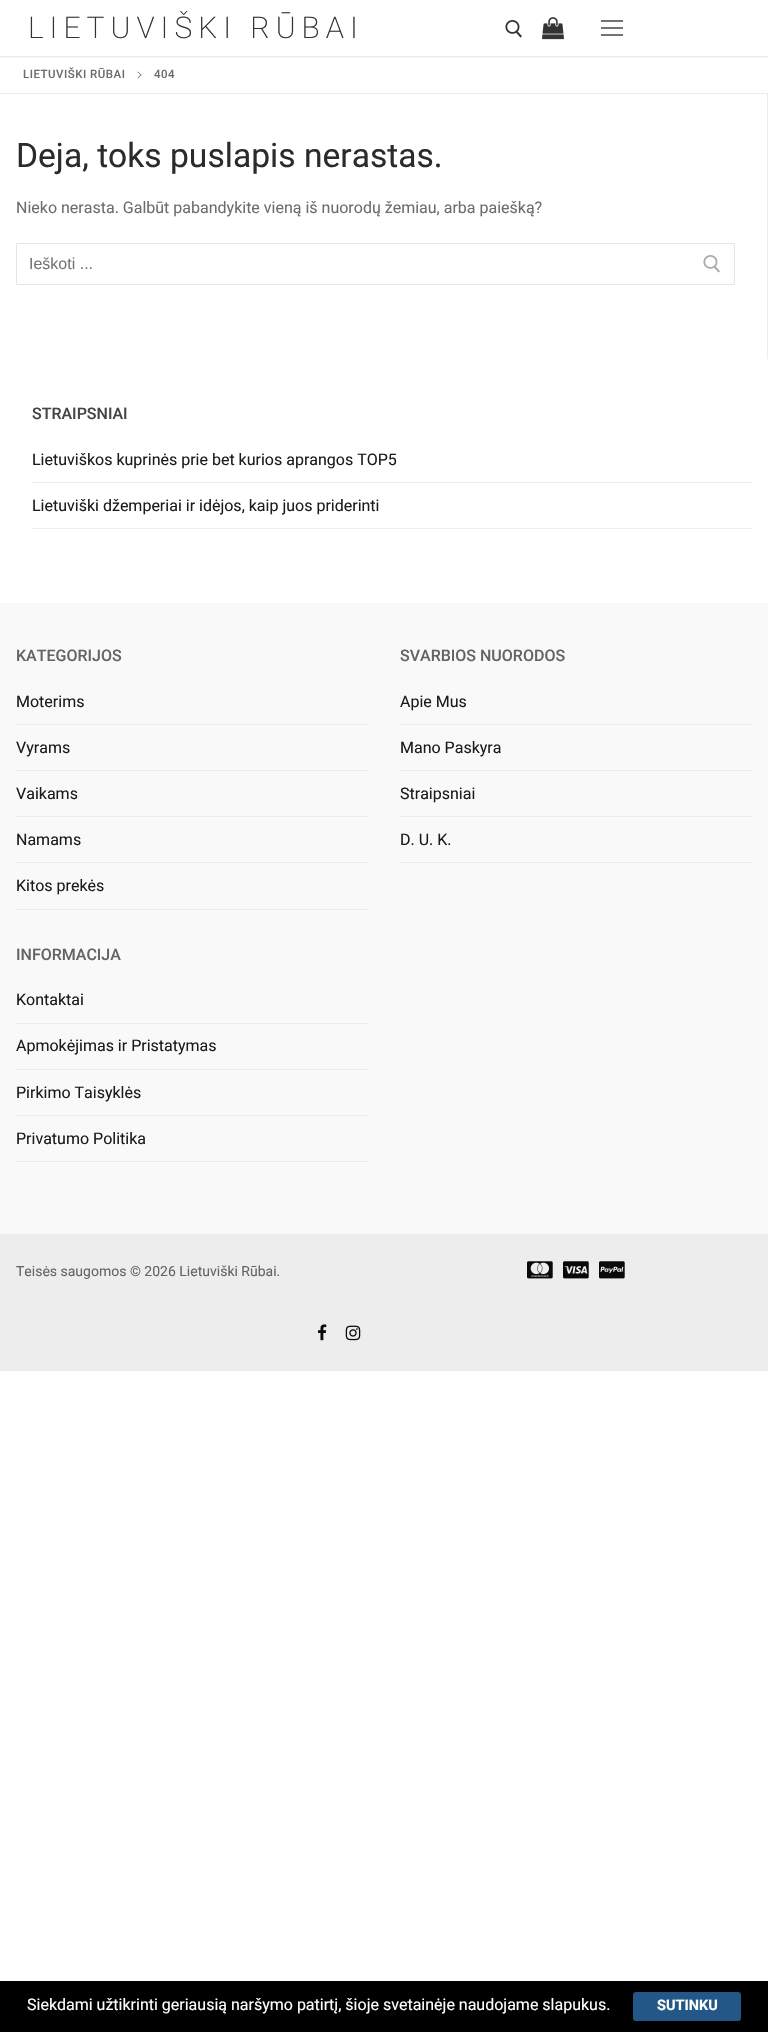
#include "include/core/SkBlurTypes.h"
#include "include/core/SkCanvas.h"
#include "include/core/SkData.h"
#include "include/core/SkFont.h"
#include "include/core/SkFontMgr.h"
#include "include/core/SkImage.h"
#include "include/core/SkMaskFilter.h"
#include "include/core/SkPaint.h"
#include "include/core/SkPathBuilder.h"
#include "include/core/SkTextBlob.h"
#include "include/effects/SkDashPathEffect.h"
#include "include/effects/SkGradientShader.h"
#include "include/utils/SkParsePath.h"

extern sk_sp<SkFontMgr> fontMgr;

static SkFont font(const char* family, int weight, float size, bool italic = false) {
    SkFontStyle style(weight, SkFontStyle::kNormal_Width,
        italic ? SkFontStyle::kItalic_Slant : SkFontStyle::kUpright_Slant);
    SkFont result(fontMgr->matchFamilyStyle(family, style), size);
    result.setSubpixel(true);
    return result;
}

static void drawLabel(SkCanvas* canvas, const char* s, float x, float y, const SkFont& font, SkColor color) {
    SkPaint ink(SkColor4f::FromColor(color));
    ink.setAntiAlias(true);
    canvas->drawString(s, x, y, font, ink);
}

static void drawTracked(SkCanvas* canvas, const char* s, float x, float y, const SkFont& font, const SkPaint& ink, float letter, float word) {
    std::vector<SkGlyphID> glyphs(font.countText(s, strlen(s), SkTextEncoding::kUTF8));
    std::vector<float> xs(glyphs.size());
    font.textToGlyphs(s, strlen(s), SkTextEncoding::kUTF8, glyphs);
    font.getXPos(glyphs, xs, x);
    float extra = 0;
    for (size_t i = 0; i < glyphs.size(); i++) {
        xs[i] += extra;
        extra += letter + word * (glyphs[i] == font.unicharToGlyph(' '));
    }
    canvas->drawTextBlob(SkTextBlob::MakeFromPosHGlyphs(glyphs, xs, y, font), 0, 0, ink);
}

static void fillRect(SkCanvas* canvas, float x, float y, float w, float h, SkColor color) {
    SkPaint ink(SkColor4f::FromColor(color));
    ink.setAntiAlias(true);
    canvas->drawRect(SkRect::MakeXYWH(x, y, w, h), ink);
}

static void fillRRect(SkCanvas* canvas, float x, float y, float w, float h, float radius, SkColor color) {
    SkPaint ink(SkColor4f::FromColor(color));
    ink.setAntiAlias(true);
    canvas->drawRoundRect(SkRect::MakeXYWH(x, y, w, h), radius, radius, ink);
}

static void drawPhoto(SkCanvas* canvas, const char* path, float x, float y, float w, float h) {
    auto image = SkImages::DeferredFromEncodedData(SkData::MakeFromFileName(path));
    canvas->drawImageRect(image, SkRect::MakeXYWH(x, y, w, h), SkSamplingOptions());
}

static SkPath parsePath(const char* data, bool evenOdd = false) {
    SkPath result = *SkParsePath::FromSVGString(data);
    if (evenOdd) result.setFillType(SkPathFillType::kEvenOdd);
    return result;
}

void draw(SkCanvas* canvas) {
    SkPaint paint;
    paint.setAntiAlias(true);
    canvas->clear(0xFFFFFFFF);
    canvas->save();
    canvas->clipRect(SkRect::MakeXYWH(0, 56, 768, 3));
    paint.setColor(0xFFE1E5EA);
    paint.setMaskFilter(SkMaskFilter::MakeBlur(kNormal_SkBlurStyle, 1));
    canvas->drawRect(SkRect::MakeXYWH(0, 1, 768, 56), paint);
    paint.setMaskFilter(nullptr);
    canvas->restore();
    SkFont font1 = font("Roboto", 200, 30);
    paint.setColor(0xFF333333);
    drawTracked(canvas, "LIETUVIŠKI RŪBAI", 28, 38, font1, paint, 6, 0);
    drawPhoto(canvas, "assets/img1.png", 505, 20, 17, 18);
    drawPhoto(canvas, "assets/img2.png", 542, 17, 22, 23);
    fillRect(canvas, 601, 27, 22, 2, 0xFF737373);
    fillRect(canvas, 601, 20, 22, 2, 0xFF737373);
    fillRect(canvas, 601, 34, 22, 2, 0xFF737373);
    fillRect(canvas, 0, 93, 768, 1, 0xFFEAECEE);
    SkFont font2 = font("Roboto", 500, 11.5f);
    paint.setColor(0xFF6D6D6D);
    drawTracked(canvas, "LIETUVIŠKI RŪBAI", 23, 78, font2, paint, 0.5f, 0);
    canvas->drawPath(parsePath("M141.5 75L138 78.5L137.5 78L141 74.5Z"), paint);
    canvas->drawPath(parsePath("M141.5 75L141 75.5L137.5 72L138 71.5Z"), paint);
    drawTracked(canvas, "404", 154, 78, font2, paint, 0.5f, 0);
    fillRect(canvas, 767, 94, 1, 265, 0xFFEAECEE);
    SkFont font3 = font("Roboto", 400, 33.6f);
    drawLabel(canvas, "Deja, toks puslapis nerastas.", 16, 167, font3, 0xFF2B2B2B);
    SkFont font4 = font("Roboto", 400, 16);
    drawLabel(canvas, "Nieko nerasta. Galbūt pabandykite vieną iš nuorodų žemiau, arba paiešką?", 16, 213, font4, 0xFF6D6D6D);
    paint.setStroke(true);
    paint.setStrokeWidth(1);
    paint.setColor(0xFFE5E5E5);
    canvas->drawRoundRect(SkRect::MakeXYWH(16.5f, 243.5f, 718, 41), 0.5f, 0.5f, paint);
    SkFont font5 = font("Liberation Sans", 400, 16);
    drawLabel(canvas, "Ieškoti ...", 29, 269, font5, 0xFF757575);
    drawPhoto(canvas, "assets/img3.png", 703, 255, 17, 18);
    SkFont font6 = font("Roboto", 500, 16);
    drawLabel(canvas, "STRAIPSNIAI", 32, 419, font6, 0xFF444444);
    fillRect(canvas, 32, 482, 720, 1, 0xFFEAECEE);
    drawLabel(canvas, "Lietuviškos kuprinės prie bet kurios aprangos TOP5", 32, 465, font4, 0xFF1C1C1C);
    fillRect(canvas, 32, 528, 720, 1, 0xFFEAECEE);
    drawLabel(canvas, "Lietuviški džemperiai ir idėjos, kaip juos priderinti", 32, 511, font4, 0xFF1C1C1C);
    fillRect(canvas, 0, 603, 768, 631, 0xFFF9F9F9);
    drawLabel(canvas, "KATEGORIJOS", 16, 661, font6, 0xFF646464);
    fillRect(canvas, 16, 724, 352, 1, 0xFFEAECEE);
    drawLabel(canvas, "Moterims", 16, 707, font4, 0xFF1C1C1C);
    fillRect(canvas, 16, 770, 352, 1, 0xFFEAECEE);
    drawLabel(canvas, "Vyrams", 16, 753, font4, 0xFF1C1C1C);
    fillRect(canvas, 16, 816, 352, 1, 0xFFEAECEE);
    drawLabel(canvas, "Vaikams", 16, 799, font4, 0xFF1C1C1C);
    fillRect(canvas, 16, 862, 352, 1, 0xFFEAECEE);
    drawLabel(canvas, "Namams", 16, 845, font4, 0xFF1C1C1C);
    fillRect(canvas, 16, 909, 352, 1, 0xFFEAECEE);
    drawLabel(canvas, "Kitos prekės", 16, 891, font4, 0xFF1C1C1C);
    drawLabel(canvas, "SVARBIOS NUORODOS", 400, 661, font6, 0xFF646464);
    fillRect(canvas, 400, 724, 352, 1, 0xFFEAECEE);
    drawLabel(canvas, "Apie Mus", 400, 707, font4, 0xFF1C1C1C);
    fillRect(canvas, 400, 770, 352, 1, 0xFFEAECEE);
    drawLabel(canvas, "Mano Paskyra", 400, 753, font4, 0xFF1C1C1C);
    fillRect(canvas, 400, 816, 352, 1, 0xFFEAECEE);
    drawLabel(canvas, "Straipsniai", 400, 799, font4, 0xFF1C1C1C);
    fillRect(canvas, 400, 862, 352, 1, 0xFFEAECEE);
    drawLabel(canvas, "D. U. K.", 400, 845, font4, 0xFF1C1C1C);
    drawLabel(canvas, "INFORMACIJA", 16, 960, font6, 0xFF646464);
    fillRect(canvas, 16, 1023, 352, 1, 0xFFEAECEE);
    drawLabel(canvas, "Kontaktai", 16, 1005, font4, 0xFF1C1C1C);
    fillRect(canvas, 16, 1069, 352, 1, 0xFFEAECEE);
    drawLabel(canvas, "Apmokėjimas ir Pristatymas", 16, 1051, font4, 0xFF1C1C1C);
    fillRect(canvas, 16, 1115, 352, 1, 0xFFEAECEE);
    drawLabel(canvas, "Pirkimo Taisyklės", 16, 1098, font4, 0xFF1C1C1C);
    fillRect(canvas, 16, 1161, 352, 1, 0xFFEAECEE);
    drawLabel(canvas, "Privatumo Politika", 16, 1144, font4, 0xFF1C1C1C);
    fillRect(canvas, 0, 1234, 768, 137, 0xFFEDEDED);
    SkFont font7 = font("Roboto", 400, 14);
    drawLabel(canvas, "Teisės saugomos © 2026 Lietuviški Rūbai.", 16, 1276, font7, 0xFF646464);
    drawPhoto(canvas, "assets/img4.png", 527, 1261, 26, 18);
    drawPhoto(canvas, "assets/img5.png", 563, 1261, 26, 18);
    drawPhoto(canvas, "assets/img6.png", 599, 1261, 26, 18);
    drawPhoto(canvas, "assets/img7.png", 318, 1324, 9, 17);
    drawPhoto(canvas, "assets/img8.png", 345, 1325, 16, 16);
    fillRect(canvas, 0, 1981, 768, 51, 0xFF000000);
    drawLabel(canvas, "Siekdami užtikrinti geriausią naršymo patirtį, šioje svetainėje naudojame slapukus.", 27, 2010, font4, 0xFFFFFFFF);
    fillRRect(canvas, 633, 1992, 108, 29, 3, 0xFF235787);
    SkFont font8 = font("Roboto", 700, 14.5f);
    drawLabel(canvas, "SUTINKU", 657, 2010, font8, 0xFFFFFFFF);
}
